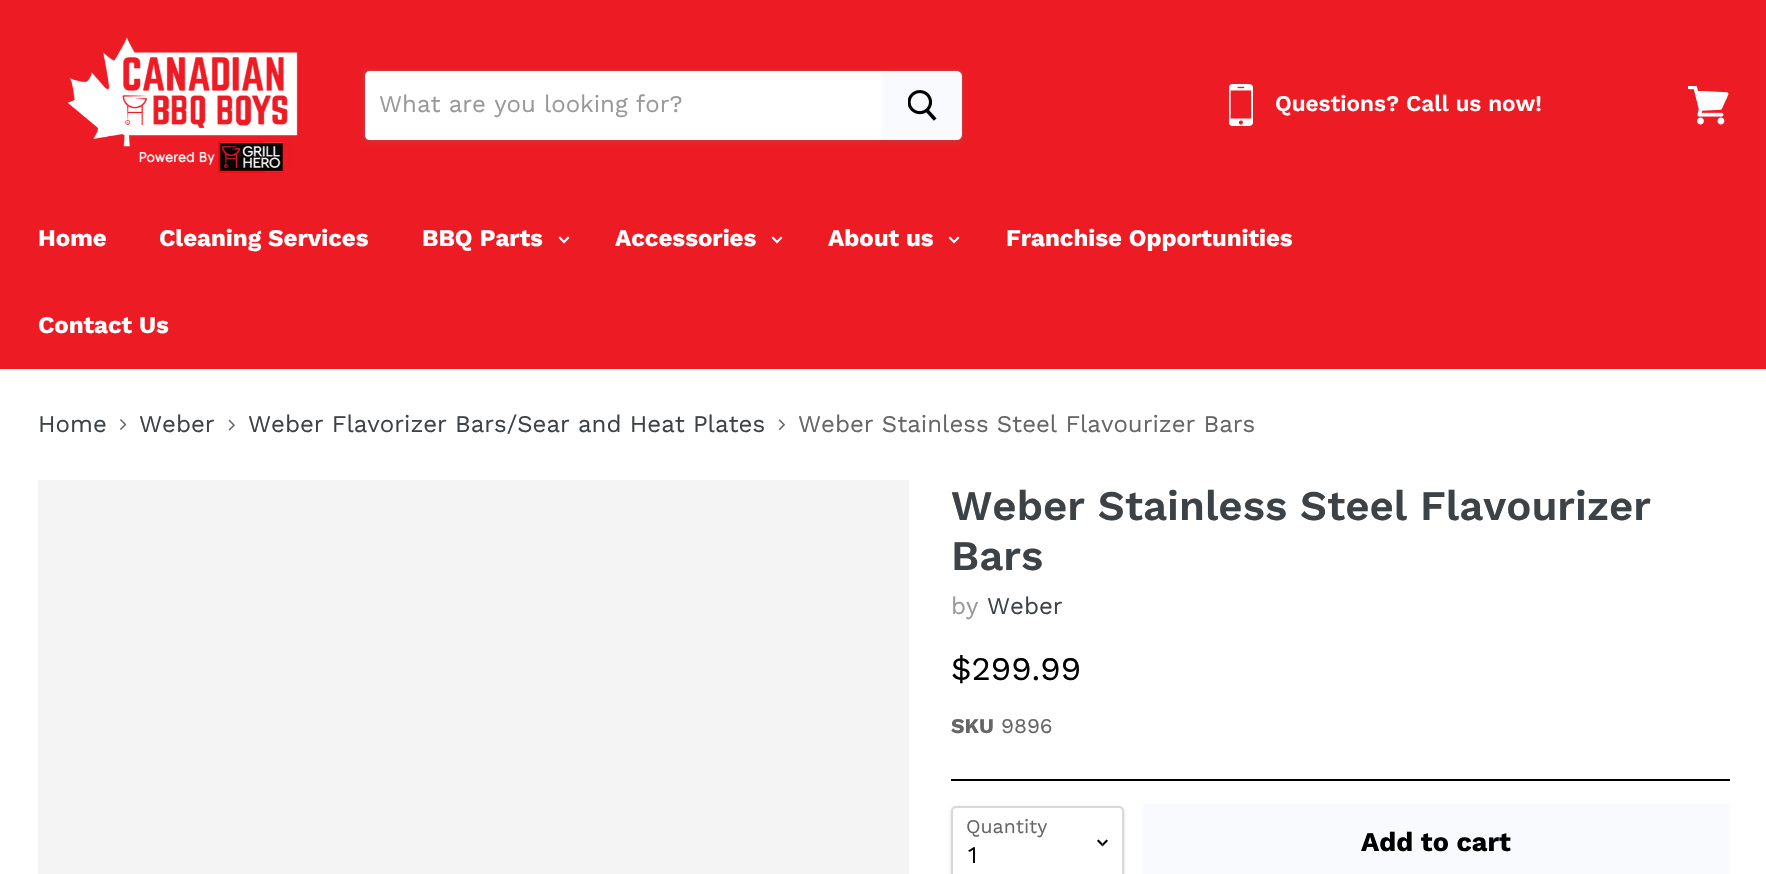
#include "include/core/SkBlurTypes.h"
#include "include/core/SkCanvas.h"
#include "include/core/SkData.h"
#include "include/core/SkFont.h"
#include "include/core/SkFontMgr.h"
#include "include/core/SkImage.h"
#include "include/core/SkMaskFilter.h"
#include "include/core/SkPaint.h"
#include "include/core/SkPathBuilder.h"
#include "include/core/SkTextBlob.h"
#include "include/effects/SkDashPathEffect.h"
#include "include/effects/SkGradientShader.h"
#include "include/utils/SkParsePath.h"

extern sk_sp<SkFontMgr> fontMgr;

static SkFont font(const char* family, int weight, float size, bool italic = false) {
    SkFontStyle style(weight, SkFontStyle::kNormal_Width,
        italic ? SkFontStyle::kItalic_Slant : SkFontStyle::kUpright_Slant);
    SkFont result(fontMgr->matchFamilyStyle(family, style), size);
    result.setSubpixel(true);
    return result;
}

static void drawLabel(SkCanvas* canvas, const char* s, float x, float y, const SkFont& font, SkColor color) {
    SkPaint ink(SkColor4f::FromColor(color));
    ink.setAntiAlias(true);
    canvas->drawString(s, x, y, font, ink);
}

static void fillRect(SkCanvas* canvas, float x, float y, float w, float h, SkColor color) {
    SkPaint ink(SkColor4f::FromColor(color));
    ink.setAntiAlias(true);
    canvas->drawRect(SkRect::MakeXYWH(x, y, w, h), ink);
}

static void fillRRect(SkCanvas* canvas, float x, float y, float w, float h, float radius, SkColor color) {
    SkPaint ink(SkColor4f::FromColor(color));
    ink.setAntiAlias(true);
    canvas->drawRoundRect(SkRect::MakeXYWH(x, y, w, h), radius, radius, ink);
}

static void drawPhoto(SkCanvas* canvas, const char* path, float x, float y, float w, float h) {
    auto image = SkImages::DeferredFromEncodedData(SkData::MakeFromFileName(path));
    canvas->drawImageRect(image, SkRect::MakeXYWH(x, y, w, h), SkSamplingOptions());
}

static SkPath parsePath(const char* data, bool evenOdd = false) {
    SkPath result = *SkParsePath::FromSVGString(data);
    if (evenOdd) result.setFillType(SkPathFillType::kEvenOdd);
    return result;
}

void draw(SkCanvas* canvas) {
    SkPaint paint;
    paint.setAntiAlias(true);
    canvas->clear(0xFFFFFFFF);
    fillRect(canvas, 0, 0, 1766, 369, 0xFFED1B24);
    drawPhoto(canvas, "assets/img1.png", 67, 37, 231, 136);
    paint.setColor(0x1C7F7F7F);
    paint.setMaskFilter(SkMaskFilter::MakeBlur(kNormal_SkBlurStyle, 2));
    canvas->drawRoundRect(SkRect::MakeXYWH(363, 72, 600, 72), 6, 6, paint);
    paint.setMaskFilter(nullptr);
    paint.setStroke(true);
    paint.setStrokeWidth(2);
    paint.setColor(0xFFD72F36);
    canvas->drawPath(parsePath("M368 70H957C960 70 962 72 962 75V135C962 138 960 140 957 140H368C366 140 364 138 364 136V74C364 72 366 70 368 70Z"), paint);
    paint.setStroke(false);
    paint.setColor(0xFFFFFFFF);
    canvas->drawPath(parsePath("M370 71H882V140H370C367 140 365 138 365 135V76C365 73 367 71 370 71Z"), paint);
    SkFont font1 = font("Work Sans", 400, 24);
    drawLabel(canvas, "What are you looking for?", 379, 112, font1, 0xFF999999);
    paint.setColor(0xFFF9FAFD);
    canvas->drawPath(parsePath("M883 72H957C959 72 961 74 961 76V135C961 137 959 139 957 139H883Z"), paint);
    paint.setStroke(true);
    canvas->drawPath(parsePath("M883 72H957C959 72 961 74 961 76V135C961 137 959 139 957 139H883Z"), paint);
    drawPhoto(canvas, "assets/img2.png", 908, 90, 29, 31);
    drawPhoto(canvas, "assets/img3.png", 1229, 84, 24, 42);
    SkFont font2 = font("Work Sans", 600, 22.5f);
    drawLabel(canvas, "Questions? Call us now!", 1275, 111, font2, 0xFFFFFFFF);
    drawPhoto(canvas, "assets/img4.png", 1688, 86, 41, 39);
    SkFont font3 = font("Work Sans", 700, 24);
    drawLabel(canvas, "Home", 38, 246, font3, 0xFFFFFFFF);
    drawLabel(canvas, "Cleaning Services", 159, 246, font3, 0xFFFFFFFF);
    drawLabel(canvas, "BBQ Parts", 422, 246, font3, 0xFFFFFFFF);
    drawPhoto(canvas, "assets/img5.png", 558, 236, 12, 8);
    drawLabel(canvas, "Accessories", 615, 246, font3, 0xFFFFFFFF);
    drawPhoto(canvas, "assets/img5.png", 771, 236, 12, 8);
    drawLabel(canvas, "About us", 828, 246, font3, 0xFFFFFFFF);
    drawPhoto(canvas, "assets/img5.png", 948, 236, 12, 8);
    drawLabel(canvas, "Franchise Opportunities", 1006, 246, font3, 0xFFFFFFFF);
    drawLabel(canvas, "Contact Us", 38, 333, font3, 0xFFFFFFFF);
    drawLabel(canvas, "Home", 38, 432, font1, 0xFF3D4246);
    drawPhoto(canvas, "assets/img6.png", 120, 419, 7, 11);
    drawLabel(canvas, "Weber", 139, 432, font1, 0xFF3D4246);
    drawPhoto(canvas, "assets/img7.png", 228, 419, 7, 12);
    drawLabel(canvas, "Weber Flavorizer Bars/Sear and Heat Plates", 248, 432, font1, 0xFF3D4246);
    drawPhoto(canvas, "assets/img8.png", 778, 419, 7, 12);
    drawLabel(canvas, "Weber Stainless Steel Flavourizer Bars", 798, 432, font1, 0xFF666666);
    fillRect(canvas, 38, 480, 871, 394, 0xFFF4F4F4);
    SkFont font4 = font("Work Sans", 600, 42);
    drawLabel(canvas, "Weber Stainless Steel Flavourizer", 951, 520, font4, 0xFF3D4246);
    drawLabel(canvas, "Bars", 951, 570, font4, 0xFF3D4246);
    drawLabel(canvas, "by", 951, 614, font1, 0xFF999999);
    drawLabel(canvas, "Weber", 987, 614, font1, 0xFF3D4246);
    SkFont font5 = font("Work Sans", 400, 33);
    drawLabel(canvas, "$299.99", 951, 680, font5, 0xFF000000);
    SkFont font6 = font("Work Sans", 700, 21);
    drawLabel(canvas, "SKU", 951, 733, font6, 0xFF666666);
    SkFont font7 = font("Work Sans", 400, 21);
    drawLabel(canvas, "9896", 1001, 733, font7, 0xFF666666);
    fillRect(canvas, 951, 779, 779, 2, 0xFF000000);
    canvas->save();
    canvas->clipPath(parsePath("M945 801H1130V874H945ZM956 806H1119C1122 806 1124 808 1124 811V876C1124 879 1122 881 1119 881H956C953 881 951 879 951 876V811C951 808 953 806 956 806Z", true), true);
    paint.setStroke(false);
    paint.setColor(0x26000000);
    paint.setMaskFilter(SkMaskFilter::MakeBlur(kNormal_SkBlurStyle, 1.5f));
    canvas->drawRoundRect(SkRect::MakeXYWH(951, 807, 173, 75), 5, 5, paint);
    paint.setMaskFilter(nullptr);
    canvas->restore();
    paint.setStroke(true);
    paint.setColor(0x4D7F7F7F);
    canvas->drawRoundRect(SkRect::MakeXYWH(952, 807, 171, 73), 4, 4, paint);
    SkFont font8 = font("Work Sans", 400, 19.5f);
    drawLabel(canvas, "Quantity", 966, 833, font8, 0xFF666666);
    drawPhoto(canvas, "assets/img9.png", 1097, 839, 11, 8);
    drawLabel(canvas, "1", 968, 863, font1, 0xFF000000);
    fillRRect(canvas, 1142, 804, 588, 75, 5, 0xFFF9FAFD);
    SkFont font9 = font("Work Sans", 700, 27);
    drawLabel(canvas, "Add to cart", 1361, 851, font9, 0xFF000000);
}
